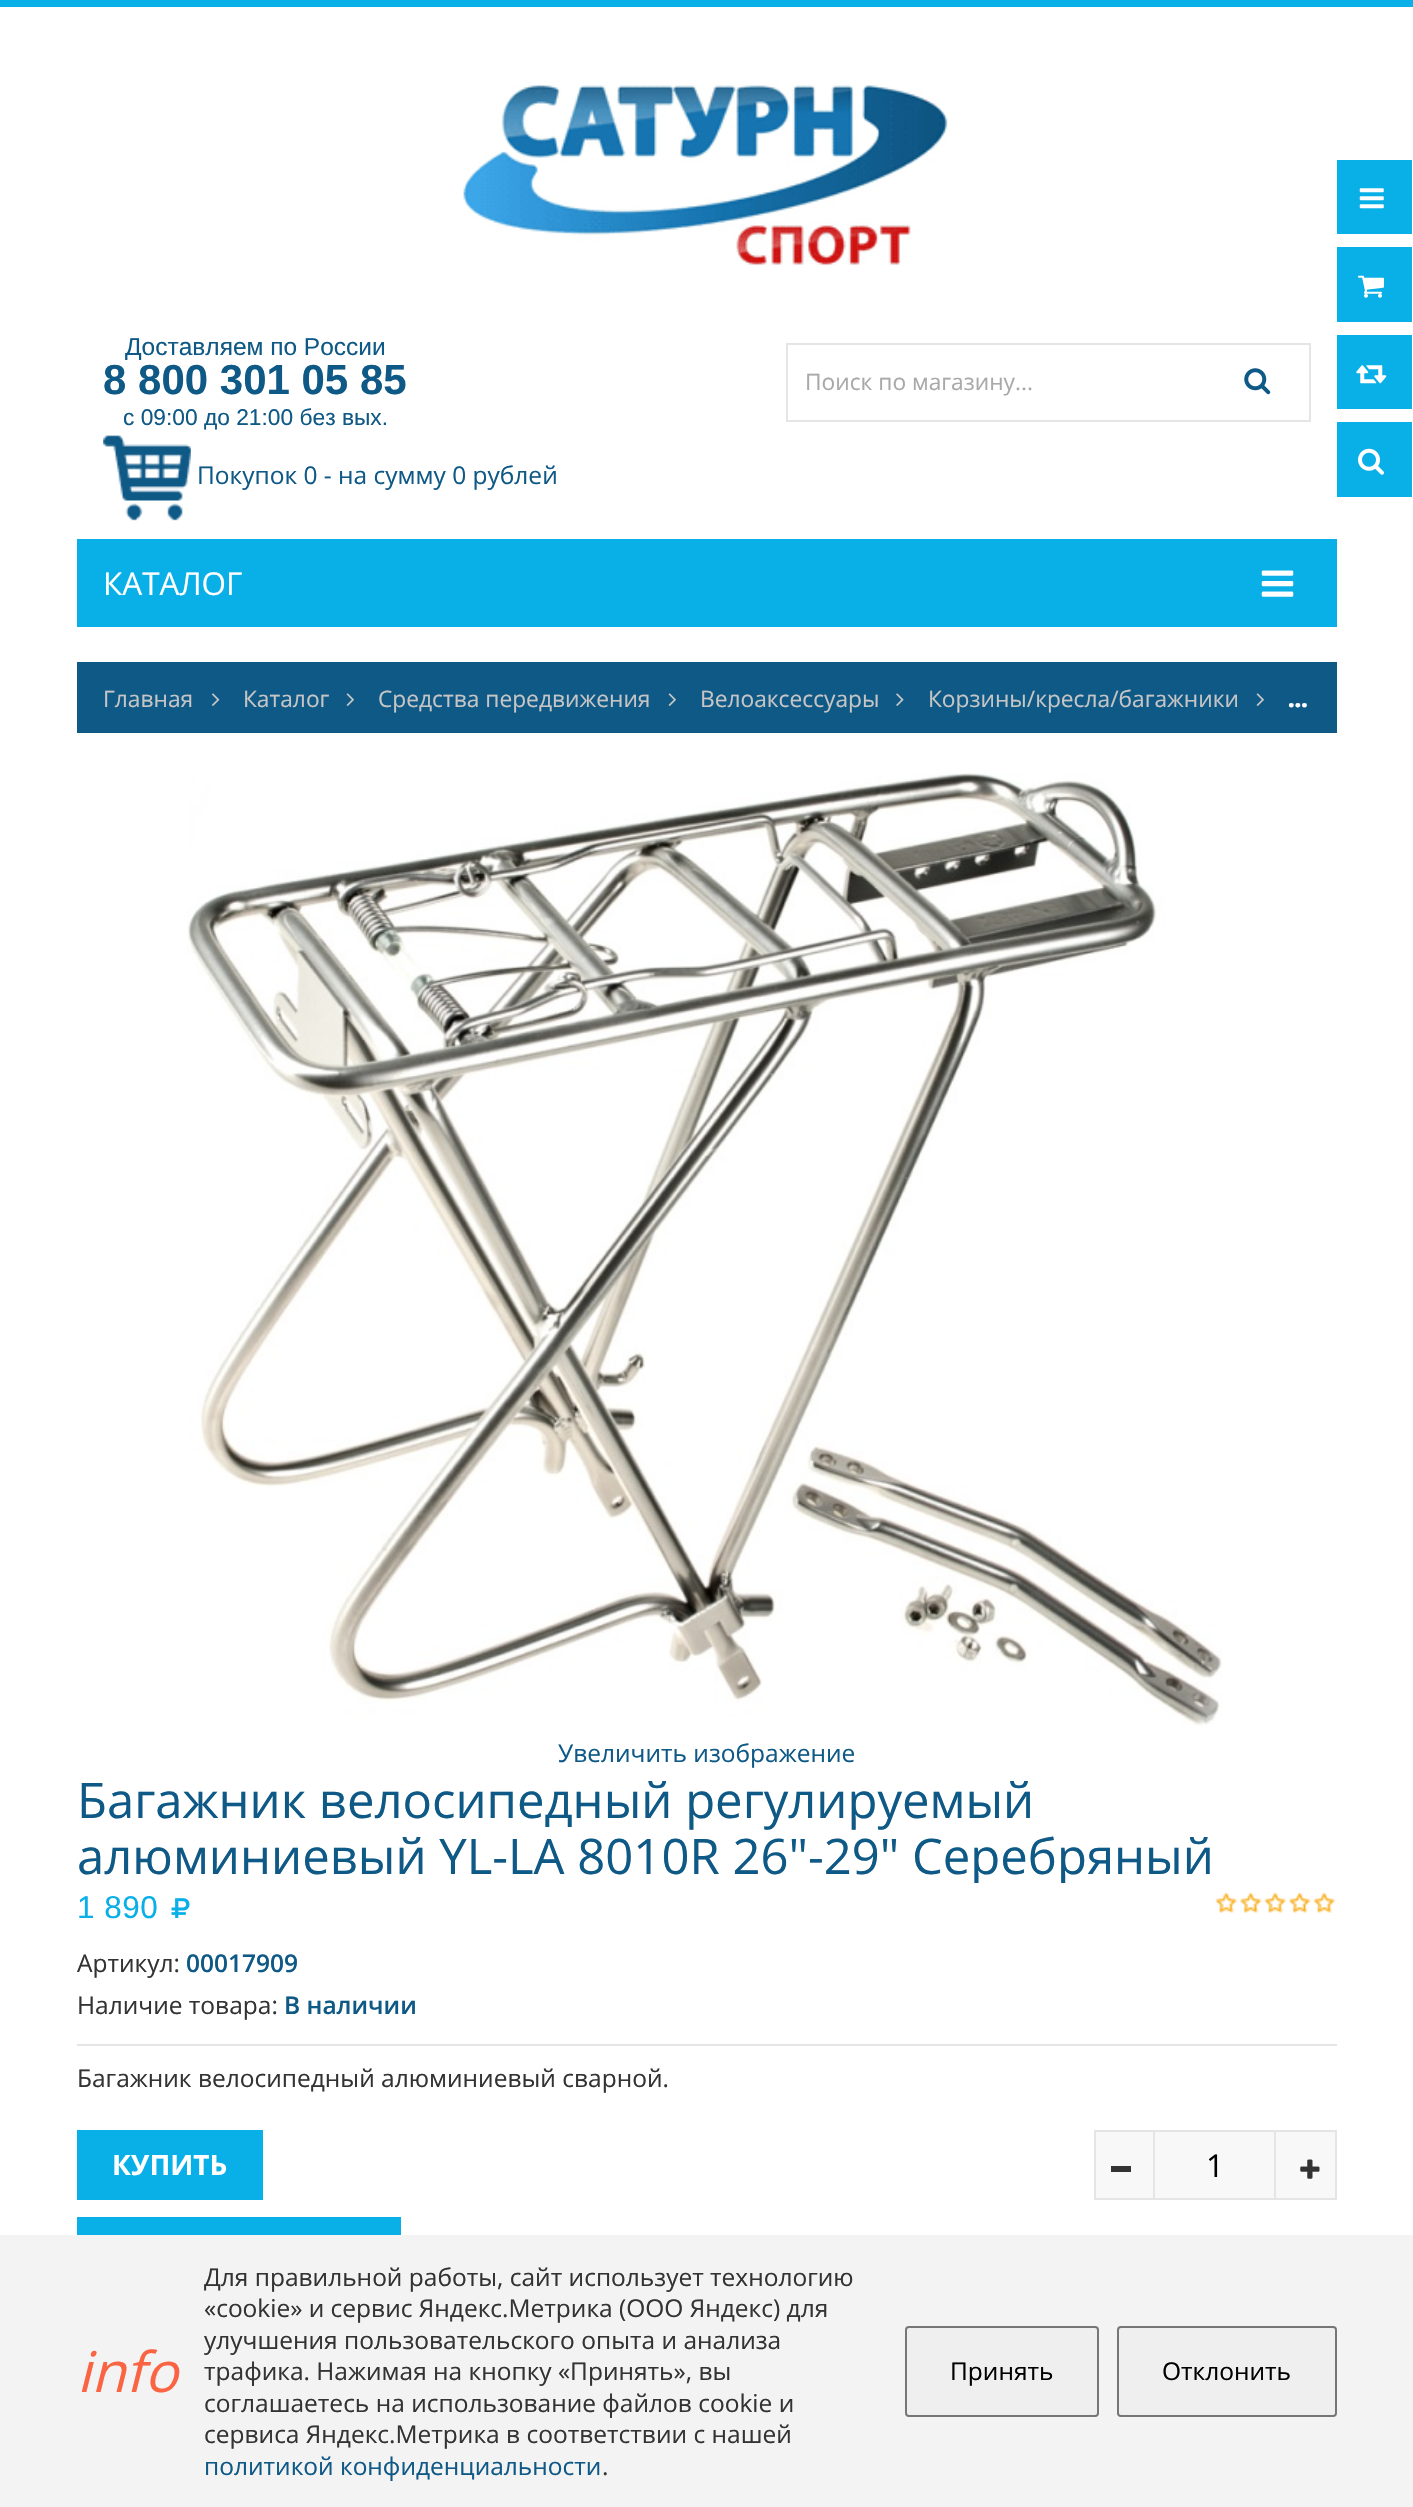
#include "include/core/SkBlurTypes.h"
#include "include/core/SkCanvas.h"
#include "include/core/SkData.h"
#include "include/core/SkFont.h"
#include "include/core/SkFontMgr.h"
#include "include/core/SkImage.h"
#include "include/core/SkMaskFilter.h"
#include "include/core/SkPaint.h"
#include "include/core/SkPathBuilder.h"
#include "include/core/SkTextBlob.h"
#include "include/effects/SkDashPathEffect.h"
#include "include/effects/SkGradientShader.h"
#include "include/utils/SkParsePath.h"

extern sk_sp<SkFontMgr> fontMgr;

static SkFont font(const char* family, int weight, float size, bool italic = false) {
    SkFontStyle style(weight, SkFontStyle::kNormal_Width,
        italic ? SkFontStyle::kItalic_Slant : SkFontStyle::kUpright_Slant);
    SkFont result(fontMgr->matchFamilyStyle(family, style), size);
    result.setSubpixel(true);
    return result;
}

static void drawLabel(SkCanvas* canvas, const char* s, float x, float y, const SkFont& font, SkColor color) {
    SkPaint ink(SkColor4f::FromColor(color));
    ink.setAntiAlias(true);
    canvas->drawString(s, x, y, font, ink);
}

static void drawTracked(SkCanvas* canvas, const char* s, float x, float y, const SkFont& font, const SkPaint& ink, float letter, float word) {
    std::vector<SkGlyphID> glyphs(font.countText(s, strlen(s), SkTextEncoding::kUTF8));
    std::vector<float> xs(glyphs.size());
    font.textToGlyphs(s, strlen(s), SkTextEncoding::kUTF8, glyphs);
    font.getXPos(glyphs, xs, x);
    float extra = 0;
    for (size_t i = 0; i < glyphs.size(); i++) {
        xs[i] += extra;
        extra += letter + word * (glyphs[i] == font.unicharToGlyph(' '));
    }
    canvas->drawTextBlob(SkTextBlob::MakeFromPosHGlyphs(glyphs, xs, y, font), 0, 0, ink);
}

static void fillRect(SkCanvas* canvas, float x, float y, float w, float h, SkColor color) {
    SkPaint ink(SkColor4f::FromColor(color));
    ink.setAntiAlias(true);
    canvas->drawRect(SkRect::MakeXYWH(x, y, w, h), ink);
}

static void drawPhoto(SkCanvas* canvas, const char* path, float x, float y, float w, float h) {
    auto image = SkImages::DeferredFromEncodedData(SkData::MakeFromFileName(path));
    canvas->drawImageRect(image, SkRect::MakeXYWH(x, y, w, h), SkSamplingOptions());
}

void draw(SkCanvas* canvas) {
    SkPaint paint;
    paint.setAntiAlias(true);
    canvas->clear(0xFFFFFFFF);
    fillRect(canvas, 0, 0, 1413, 7, 0xFF09AFE7);
    drawPhoto(canvas, "assets/img1.png", 463, 84, 485, 182);
    SkFont font1 = font("Liberation Sans", 400, 24.5f);
    drawLabel(canvas, "Доставляем по России", 125, 355, font1, 0xFF0F5986);
    SkFont font2 = font("Liberation Sans", 700, 42);
    drawLabel(canvas, "8 800 301 05 85", 103, 394, font2, 0xFF0F5986);
    SkFont font3 = font("Liberation Sans", 400, 22.75f);
    drawLabel(canvas, "с 09:00 до 21:00 без вых.", 123, 425, font3, 0xFF0F5986);
    paint.setStroke(true);
    paint.setStrokeWidth(2);
    paint.setColor(0xFFE5E5E5);
    canvas->drawRect(SkRect::MakeXYWH(787, 344, 523, 77), paint);
    SkFont font4 = font("Open Sans", 400, 22.75f);
    drawLabel(canvas, "Поиск по магазину...", 805, 390, font4, 0xFFA9A9A9);
    drawPhoto(canvas, "assets/img2.png", 1244, 368, 27, 27);
    drawPhoto(canvas, "assets/img3.png", 103, 435, 88, 86);
    SkFont font5 = font("Open Sans", 400, 24.5f);
    drawLabel(canvas, "Покупок 0 - на сумму 0 рублей", 197, 484, font5, 0xFF0F5986);
    fillRect(canvas, 77, 539, 1260, 88, 0xFF09AFE7);
    SkFont font6 = font("Open Sans", 400, 31.5f);
    drawLabel(canvas, "КАТАЛОГ", 103, 595, font6, 0xFFFFFFFF);
    drawPhoto(canvas, "assets/img4.png", 1261, 570, 33, 27);
    fillRect(canvas, 1337, 160, 75, 74, 0xFF09AFE7);
    drawPhoto(canvas, "assets/img5.png", 1359, 188, 25, 21);
    fillRect(canvas, 1337, 247, 75, 75, 0xFF09AFE7);
    drawPhoto(canvas, "assets/img6.png", 1358, 275, 26, 23);
    fillRect(canvas, 1337, 335, 75, 74, 0xFF09AFE7);
    drawPhoto(canvas, "assets/img7.png", 1356, 365, 31, 19);
    fillRect(canvas, 1337, 422, 75, 75, 0xFF09AFE7);
    drawPhoto(canvas, "assets/img8.png", 1358, 448, 26, 27);
    fillRect(canvas, 77, 662, 1260, 71, 0xFF0F5986);
    drawLabel(canvas, "Главная", 103, 707, font4, 0xFFC5C5C5);
    drawPhoto(canvas, "assets/img9.png", 212, 693, 8, 13);
    drawLabel(canvas, "Каталог", 243, 707, font4, 0xFFC5C5C5);
    drawPhoto(canvas, "assets/img10.png", 346, 693, 8, 13);
    drawLabel(canvas, "Средства передвижения", 378, 707, font4, 0xFFC5C5C5);
    drawPhoto(canvas, "assets/img10.png", 668, 693, 8, 13);
    drawLabel(canvas, "Велоаксессуары", 700, 707, font4, 0xFFC5C5C5);
    drawPhoto(canvas, "assets/img11.png", 896, 693, 8, 13);
    drawLabel(canvas, "Корзины/кресла/багажники", 928, 707, font4, 0xFFC5C5C5);
    drawPhoto(canvas, "assets/img10.png", 1256, 693, 8, 13);
    SkFont font7 = font("Open Sans", 800, 22.75f);
    drawLabel(canvas, "…", 1288, 707, font7, 0xFFFFFFFF);
    drawPhoto(canvas, "assets/img12.png", 187, 773, 1035, 953);
    drawLabel(canvas, "Увеличить изображение", 558, 1762, font5, 0xFF0F5986);
    SkFont font8 = font("Open Sans", 400, 49);
    drawLabel(canvas, "Багажник велосипедный регулируемый", 77, 1818, font8, 0xFF0F5986);
    canvas->save();
    canvas->clipRect(SkRect::MakeXYWH(77, 1771, 1260, 112));
    drawLabel(canvas, "алюминиевый YL-LA 8010R 26\"-29\" Серебряный", 77, 1874, font8, 0xFF0F5986);
    canvas->restore();
    SkFont font9 = font("Liberation Sans", 400, 31.5f);
    paint.setStroke(false);
    paint.setColor(0xFF09AFE7);
    drawTracked(canvas, "1 890", 77, 1918, font9, paint, 0.5f, 0);
    drawPhoto(canvas, "assets/img13.png", 171, 1898, 19, 20);
    drawPhoto(canvas, "assets/img14.png", 1215, 1892, 121, 21);
    drawLabel(canvas, "Артикул:", 77, 1972, font5, 0xFF333333);
    SkFont font10 = font("Open Sans", 600, 24.5f);
    drawLabel(canvas, "00017909", 186, 1972, font10, 0xFF0F5986);
    drawLabel(canvas, "Наличие товара:", 77, 2014, font5, 0xFF333333);
    drawLabel(canvas, "В наличии", 284, 2014, font10, 0xFF0F5986);
    fillRect(canvas, 77, 2044, 1260, 2, 0xFFE5E5E5);
    drawLabel(canvas, "Багажник велосипедный алюминиевый сварной.", 77, 2087, font5, 0xFF333333);
    fillRect(canvas, 77, 2130, 186, 70, 0xFF09AFE7);
    SkFont font11 = font("Open Sans", 700, 28);
    drawLabel(canvas, "КУПИТЬ", 112, 2175, font11, 0xFFFFFFFF);
    paint.setColor(0xFFF8F8F8);
    canvas->drawRect(SkRect::MakeXYWH(1095, 2131, 241, 68), paint);
    paint.setStroke(true);
    paint.setColor(0xFFE5E5E5);
    canvas->drawRect(SkRect::MakeXYWH(1095, 2131, 241, 68), paint);
    fillRect(canvas, 1111, 2166, 20, 6, 0xFF333333);
    fillRect(canvas, 1274, 2132, 2, 66, 0xFFE5E5E5);
    fillRect(canvas, 1153, 2132, 2, 66, 0xFFE5E5E5);
    drawLabel(canvas, "1", 1206, 2177, font6, 0xFF000000);
    drawPhoto(canvas, "assets/img15.png", 1300, 2159, 20, 20);
    fillRect(canvas, 77, 2217, 324, 18, 0xFF09AFE7);
    fillRect(canvas, 0, 2235, 1413, 272, 0xFFF3F3F3);
    SkFont font12 = font("Open Sans", 400, 56, true);
    drawLabel(canvas, "info", 77, 2392, font12, 0xFFFB6442);
    drawLabel(canvas, "Для правильной работы, сайт использует технологию", 204, 2286, font5, 0xFF333333);
    drawLabel(canvas, "«cookie» и сервис Яндекс.Метрика (ООО Яндекс) для", 204, 2317, font5, 0xFF333333);
    drawLabel(canvas, "улучшения пользовательского опыта и анализа", 204, 2349, font5, 0xFF333333);
    drawLabel(canvas, "трафика. Нажимая на кнопку «Принять», вы", 204, 2380, font5, 0xFF333333);
    drawLabel(canvas, "соглашаетесь на использование файлов cookie и", 204, 2412, font5, 0xFF333333);
    drawLabel(canvas, "сервиса Яндекс.Метрика в соответствии с нашей", 204, 2443, font5, 0xFF333333);
    drawLabel(canvas, "политикой конфиденциальности", 204, 2475, font5, 0xFF0F5986);
    drawLabel(canvas, ".", 602, 2475, font5, 0xFF333333);
    paint.setStroke(false);
    paint.setColor(0xFFEFEFEF);
    canvas->drawRoundRect(SkRect::MakeXYWH(906, 2327, 192, 89), 3, 3, paint);
    paint.setStroke(true);
    paint.setColor(0xFF767676);
    canvas->drawRoundRect(SkRect::MakeXYWH(906, 2327, 192, 89), 3, 3, paint);
    drawLabel(canvas, "Принять", 950, 2380, font5, 0xFF000000);
    paint.setStroke(false);
    paint.setColor(0xFFEFEFEF);
    canvas->drawRoundRect(SkRect::MakeXYWH(1118, 2327, 218, 89), 3, 3, paint);
    paint.setStroke(true);
    paint.setColor(0xFF767676);
    canvas->drawRoundRect(SkRect::MakeXYWH(1118, 2327, 218, 89), 3, 3, paint);
    drawLabel(canvas, "Отклонить", 1162, 2380, font5, 0xFF000000);
}
